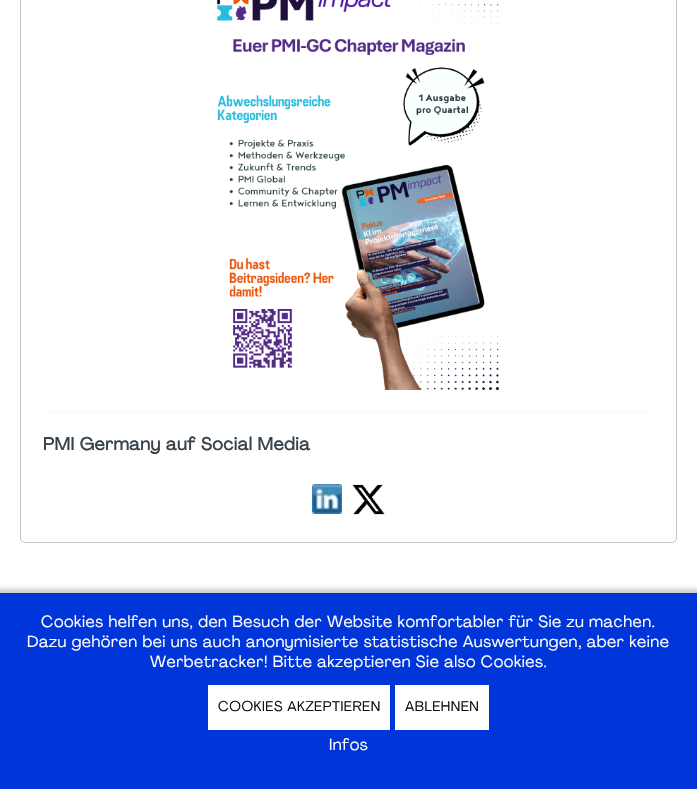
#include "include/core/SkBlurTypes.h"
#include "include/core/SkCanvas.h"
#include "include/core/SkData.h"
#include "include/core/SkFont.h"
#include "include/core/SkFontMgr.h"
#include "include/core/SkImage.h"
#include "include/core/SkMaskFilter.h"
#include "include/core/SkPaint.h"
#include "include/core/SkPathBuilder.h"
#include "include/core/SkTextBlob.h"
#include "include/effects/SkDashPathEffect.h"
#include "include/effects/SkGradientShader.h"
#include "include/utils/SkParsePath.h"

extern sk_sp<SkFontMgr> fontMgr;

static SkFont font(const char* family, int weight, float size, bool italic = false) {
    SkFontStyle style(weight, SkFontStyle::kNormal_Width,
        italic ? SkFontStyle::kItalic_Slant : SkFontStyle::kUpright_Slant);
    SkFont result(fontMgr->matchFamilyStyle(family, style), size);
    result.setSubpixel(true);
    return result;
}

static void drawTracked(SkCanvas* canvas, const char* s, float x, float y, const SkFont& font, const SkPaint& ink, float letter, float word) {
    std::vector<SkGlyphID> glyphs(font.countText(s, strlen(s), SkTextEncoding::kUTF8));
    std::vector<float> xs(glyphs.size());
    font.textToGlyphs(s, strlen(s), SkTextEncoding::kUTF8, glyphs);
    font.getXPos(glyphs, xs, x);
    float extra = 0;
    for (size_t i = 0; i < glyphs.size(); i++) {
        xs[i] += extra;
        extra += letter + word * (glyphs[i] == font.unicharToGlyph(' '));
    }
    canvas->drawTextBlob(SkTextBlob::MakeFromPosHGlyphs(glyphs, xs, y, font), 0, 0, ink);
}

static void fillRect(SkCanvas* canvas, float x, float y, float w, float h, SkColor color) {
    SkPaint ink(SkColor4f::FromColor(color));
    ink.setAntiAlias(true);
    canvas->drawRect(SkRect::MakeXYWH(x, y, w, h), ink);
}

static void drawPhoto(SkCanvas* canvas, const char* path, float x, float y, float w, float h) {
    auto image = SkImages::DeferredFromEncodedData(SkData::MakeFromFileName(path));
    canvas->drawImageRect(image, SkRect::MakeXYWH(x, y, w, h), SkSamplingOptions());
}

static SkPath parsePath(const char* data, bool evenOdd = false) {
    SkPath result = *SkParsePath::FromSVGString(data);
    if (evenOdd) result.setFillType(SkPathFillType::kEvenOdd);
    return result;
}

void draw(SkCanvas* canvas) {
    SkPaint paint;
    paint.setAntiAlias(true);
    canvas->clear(0xFFFFFFFF);
    paint.setStroke(true);
    paint.setStrokeWidth(1);
    paint.setColor(0xFFC0C6CF);
    canvas->drawPath(parsePath("M20.5-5.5H676.5V538C676.5 540.5 674.5 542.5 672 542.5H25C22.5 542.5 20.5 540.5 20.5 538Z"), paint);
    drawPhoto(canvas, "assets/img1.png", 216, 0, 283, 390);
    fillRect(canvas, 43, 411, 611, 1, 0xFFF9F9F9);
    SkFont font1 = font("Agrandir", 700, 17.6f);
    paint.setStroke(false);
    paint.setColor(0xFF37424A);
    drawTracked(canvas, "PMI Germany auf Social Media", 43, 450, font1, paint, 0.5f, 0);
    drawPhoto(canvas, "assets/img2.png", 312, 484, 30, 30);
    drawPhoto(canvas, "assets/img3.png", 352, 484, 33, 31);
    paint.setColor(0x36000000);
    paint.setMaskFilter(SkMaskFilter::MakeBlur(kNormal_SkBlurStyle, 2.5f));
    canvas->drawRect(SkRect::MakeXYWH(-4, 589, 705, 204), paint);
    paint.setMaskFilter(nullptr);
    fillRect(canvas, 0, 593, 697, 196, 0xFF0036D9);
    SkFont font2 = font("Agrandir", 400, 16);
    paint.setColor(0xFFFFFFFF);
    drawTracked(canvas, "Cookies helfen uns, den Besuch der Website komfortabler für Sie zu machen.", 41, 627, font2, paint, 0.5f, 0);
    drawTracked(canvas, "Dazu gehören bei uns auch anonymisierte statistische Auswertungen, aber keine", 27, 647, font2, paint, 0.5f, 0);
    drawTracked(canvas, "Werbetracker! Bitte akzeptieren Sie also Cookies.", 150, 667, font2, paint, 0.5f, 0);
    fillRect(canvas, 208, 685, 182, 45, 0xFFFFFFFF);
    SkFont font3 = font("Agrandir", 400, 14);
    paint.setColor(0xFF111111);
    drawTracked(canvas, "COOKIES AKZEPTIEREN", 218, 711, font3, paint, 0.5f, 0);
    fillRect(canvas, 395, 685, 94, 45, 0xFFFFFFFF);
    drawTracked(canvas, "ABLEHNEN", 405, 711, font3, paint, 0.5f, 0);
    paint.setColor(0xFFFFFFFF);
    drawTracked(canvas, "Infos", 329, 750, font2, paint, 0.5f, 0);
}
